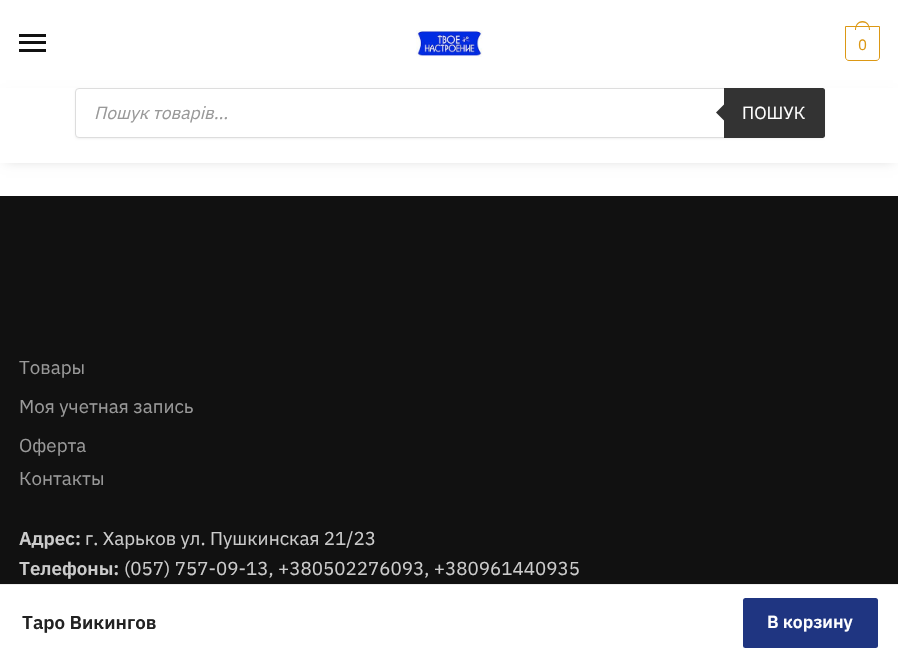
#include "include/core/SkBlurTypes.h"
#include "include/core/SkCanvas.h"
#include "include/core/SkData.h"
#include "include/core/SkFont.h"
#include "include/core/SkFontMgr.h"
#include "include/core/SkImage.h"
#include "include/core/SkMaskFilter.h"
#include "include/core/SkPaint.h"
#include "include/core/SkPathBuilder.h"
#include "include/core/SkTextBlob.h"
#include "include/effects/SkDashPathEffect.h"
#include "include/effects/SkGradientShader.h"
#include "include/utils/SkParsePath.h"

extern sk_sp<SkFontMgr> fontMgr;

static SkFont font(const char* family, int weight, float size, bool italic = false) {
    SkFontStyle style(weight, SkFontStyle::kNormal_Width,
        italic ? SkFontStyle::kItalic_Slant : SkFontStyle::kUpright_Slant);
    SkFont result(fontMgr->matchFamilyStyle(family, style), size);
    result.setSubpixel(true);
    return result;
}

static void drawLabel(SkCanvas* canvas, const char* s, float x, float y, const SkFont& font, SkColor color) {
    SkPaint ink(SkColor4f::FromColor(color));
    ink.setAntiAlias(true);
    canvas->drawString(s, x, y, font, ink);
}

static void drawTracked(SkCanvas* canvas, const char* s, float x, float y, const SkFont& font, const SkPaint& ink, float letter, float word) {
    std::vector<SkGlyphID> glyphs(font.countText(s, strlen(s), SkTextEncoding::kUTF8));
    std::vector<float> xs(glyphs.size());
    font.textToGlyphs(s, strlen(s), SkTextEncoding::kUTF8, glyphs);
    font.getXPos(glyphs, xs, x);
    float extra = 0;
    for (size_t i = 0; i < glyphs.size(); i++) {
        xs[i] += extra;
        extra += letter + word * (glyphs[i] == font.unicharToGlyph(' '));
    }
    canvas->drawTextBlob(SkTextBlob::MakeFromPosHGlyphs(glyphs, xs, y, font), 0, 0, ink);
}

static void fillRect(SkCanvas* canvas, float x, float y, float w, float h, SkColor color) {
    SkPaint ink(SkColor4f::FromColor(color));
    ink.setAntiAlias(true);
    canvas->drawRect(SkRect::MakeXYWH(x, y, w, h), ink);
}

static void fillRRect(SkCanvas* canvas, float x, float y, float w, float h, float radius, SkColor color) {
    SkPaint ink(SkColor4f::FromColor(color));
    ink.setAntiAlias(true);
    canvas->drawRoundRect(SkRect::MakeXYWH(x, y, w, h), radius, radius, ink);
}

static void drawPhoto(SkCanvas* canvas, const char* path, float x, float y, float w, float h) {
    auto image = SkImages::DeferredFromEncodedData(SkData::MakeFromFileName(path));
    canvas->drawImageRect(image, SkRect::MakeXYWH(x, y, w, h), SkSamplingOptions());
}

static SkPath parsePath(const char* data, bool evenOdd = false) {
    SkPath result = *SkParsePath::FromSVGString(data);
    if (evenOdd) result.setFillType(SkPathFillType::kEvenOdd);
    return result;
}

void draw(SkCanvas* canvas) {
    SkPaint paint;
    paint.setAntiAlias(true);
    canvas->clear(0xFF111111);
    fillRect(canvas, 0, 0, 898, 88, 0xFFFFFFFF);
    fillRect(canvas, 19, 34, 27, 3, 0xFF111111);
    fillRect(canvas, 19, 41, 27, 3, 0xFF111111);
    fillRect(canvas, 19, 49, 27, 3, 0xFF111111);
    drawPhoto(canvas, "assets/img1.png", 416, 30, 67, 27);
    paint.setStroke(true);
    paint.setStrokeWidth(1);
    paint.setColor(0xFFDC9814);
    canvas->drawPath(parsePath("M845.5 26.5H879.5V57C879.5 59 878 60.5 876 60.5H849C847 60.5 845.5 59 845.5 57Z"), paint);
    paint.setStroke(false);
    canvas->drawPath(parsePath("M862.5 21C867.5 21 870 25.5 870 30H855C855 25.5 857.5 21 862.5 21ZM862.5 22.5C867 22.5 869 26 869 30H856C856 26 858 22.5 862.5 22.5Z", true), paint);
    SkFont font1 = font("IBM Plex Sans", 400, 15);
    drawTracked(canvas, "0", 858, 50, font1, paint, -1, 0);
    fillRect(canvas, 0, 163, 898, 33, 0xFFFFFFFF);
    paint.setColor(0x2E000000);
    paint.setMaskFilter(SkMaskFilter::MakeBlur(kNormal_SkBlurStyle, 6));
    canvas->drawRect(SkRect::MakeXYWH(6, 98, 887, 62), paint);
    paint.setMaskFilter(nullptr);
    fillRect(canvas, 0, 88, 898, 75, 0xFFFFFFFF);
    paint.setColor(0x0D000000);
    paint.setMaskFilter(SkMaskFilter::MakeBlur(kNormal_SkBlurStyle, 1));
    canvas->drawRoundRect(SkRect::MakeXYWH(75, 89, 750, 50), 4, 4, paint);
    paint.setMaskFilter(nullptr);
    paint.setColor(0xFFFFFFFF);
    canvas->drawRoundRect(SkRect::MakeXYWH(75.5f, 88.5f, 749, 49), 3.5f, 3.5f, paint);
    paint.setStroke(true);
    paint.setColor(0xFFDDDDDD);
    canvas->drawRoundRect(SkRect::MakeXYWH(75.5f, 88.5f, 749, 49), 3.5f, 3.5f, paint);
    SkFont font2 = font("IBM Plex Sans", 400, 17.5f, true);
    drawLabel(canvas, "Пошук товарів...", 94, 119, font2, 0xFF999999);
    paint.setStroke(false);
    paint.setColor(0xFF333333);
    canvas->drawPath(parsePath("M724 88H822.5C824 88 825 89 825 90.5V135.5C825 137 824 138 822.5 138H724Z"), paint);
    canvas->drawPath(parsePath("M726 102.5V122.5L716 112.5Z"), paint);
    SkFont font3 = font("IBM Plex Sans", 400, 17.5f);
    drawLabel(canvas, "ПОШУК", 742, 119, font3, 0xFFFFFFFF);
    SkFont font4 = font("IBM Plex Sans", 400, 18.75f);
    drawLabel(canvas, "Товары", 19, 374, font4, 0xFF999999);
    drawLabel(canvas, "Моя учетная запись", 19, 413, font4, 0xFF999999);
    drawLabel(canvas, "Оферта", 19, 452, font4, 0xFF999999);
    drawLabel(canvas, "Контакты", 19, 485, font4, 0xFF999999);
    SkFont font5 = font("IBM Plex Sans", 600, 18.75f);
    drawLabel(canvas, "Адрес:", 19, 545, font5, 0xFFCCCCCC);
    drawLabel(canvas, "г. Харьков ул. Пушкинская 21/23", 85, 545, font4, 0xFFCCCCCC);
    drawLabel(canvas, "Телефоны:", 19, 575, font5, 0xFFCCCCCC);
    drawLabel(canvas, "(057) 757-09-13, +380502276093, +380961440935", 124, 575, font4, 0xFFCCCCCC);
    fillRect(canvas, 0, 585, 898, 74, 0xFFFFFFFF);
    fillRect(canvas, 0, 584, 898, 1, 0xFFEEEEEE);
    drawLabel(canvas, "Таро Викингов", 22, 629, font5, 0xFF222222);
    fillRRect(canvas, 743, 598, 135, 50, 2.5f, 0xFF1F3581);
    SkFont font6 = font("IBM Plex Sans", 600, 17.5f);
    drawLabel(canvas, "В корзину", 767, 628, font6, 0xFFFFFFFF);
}
